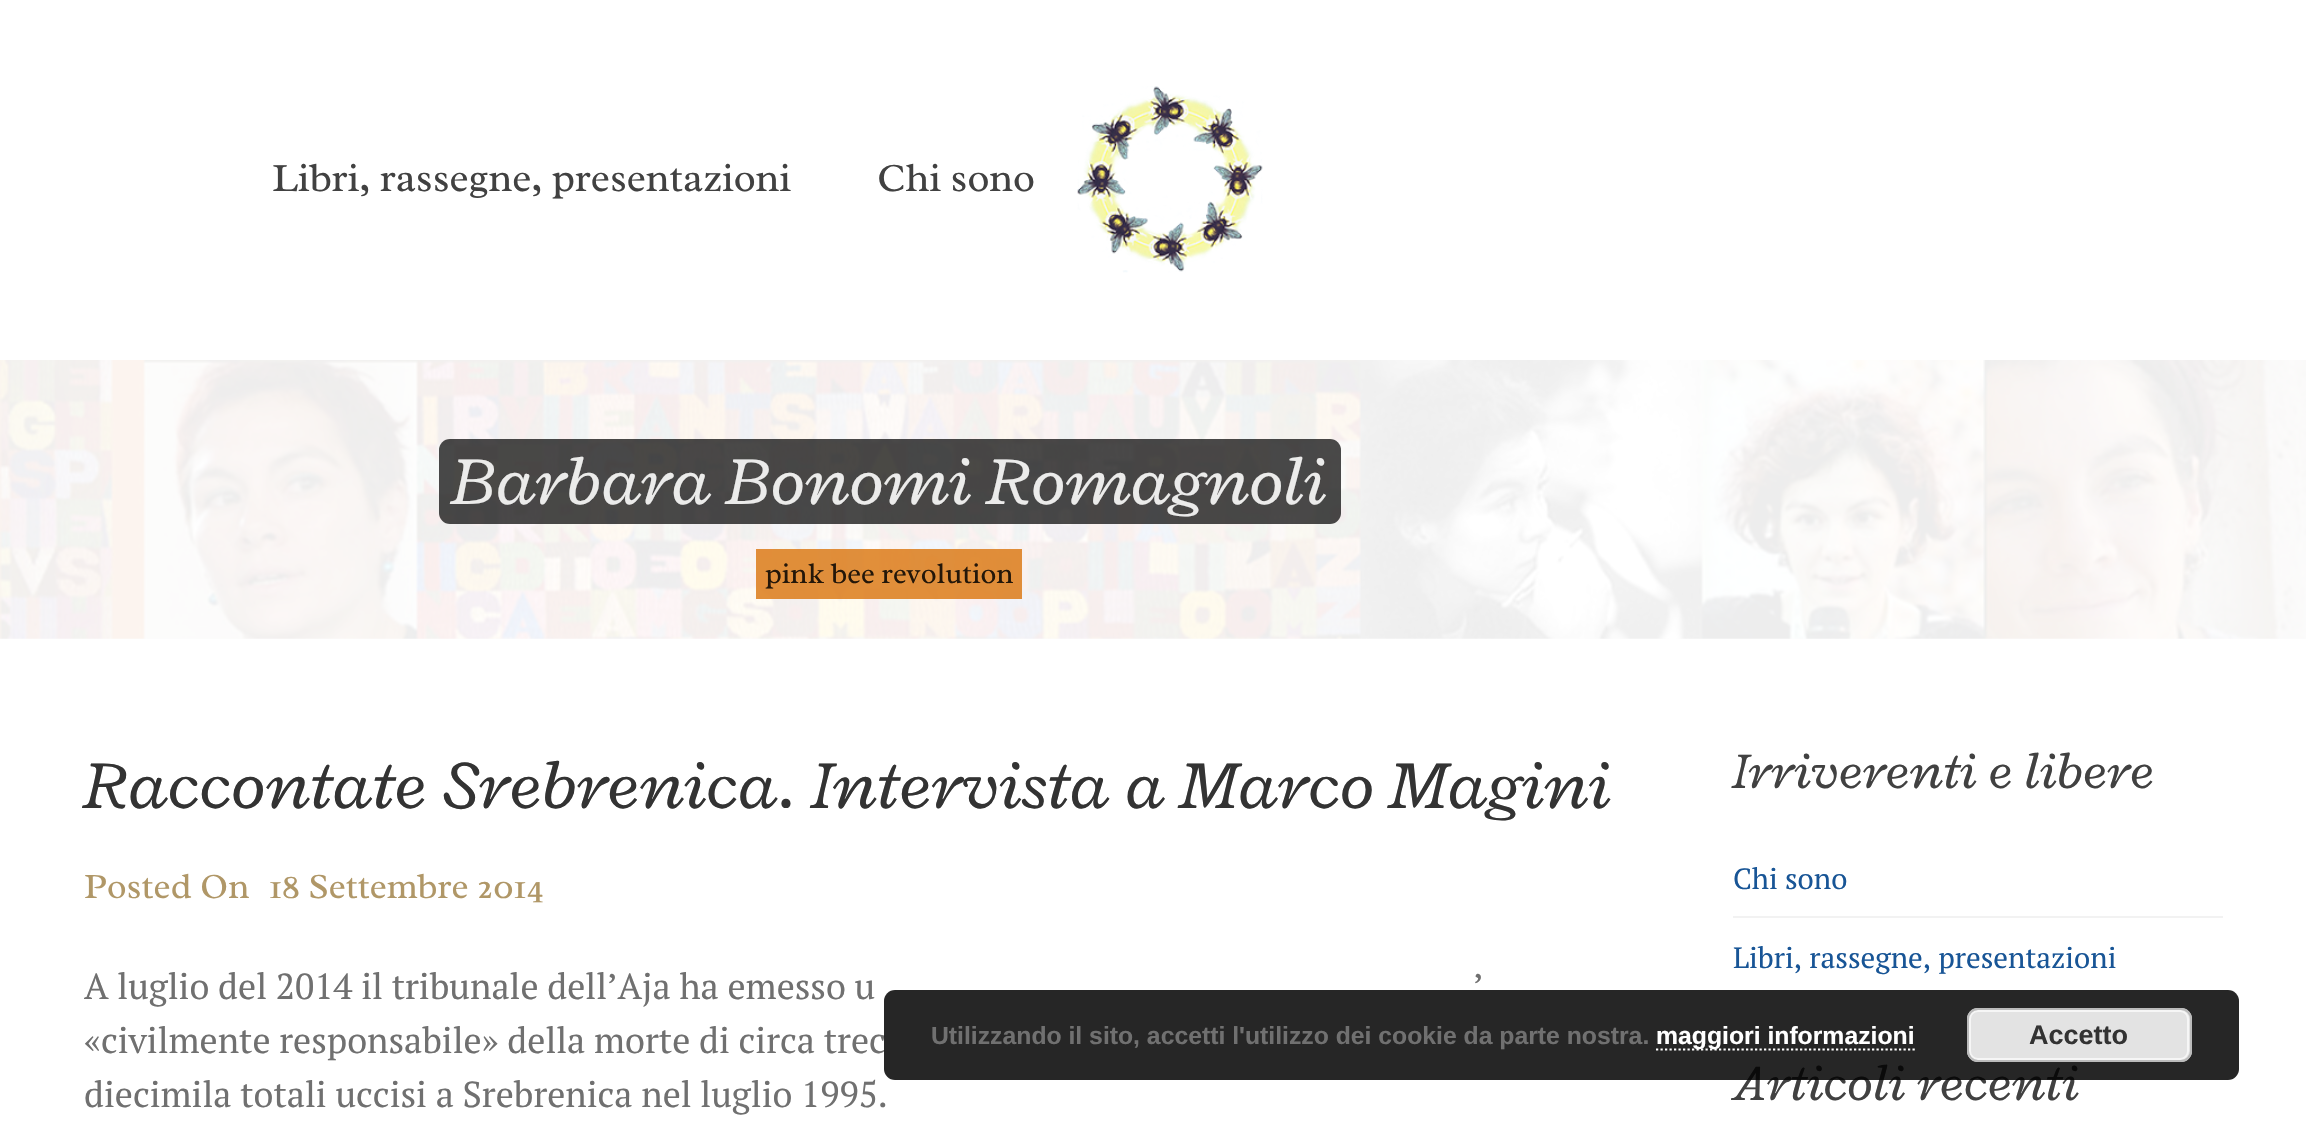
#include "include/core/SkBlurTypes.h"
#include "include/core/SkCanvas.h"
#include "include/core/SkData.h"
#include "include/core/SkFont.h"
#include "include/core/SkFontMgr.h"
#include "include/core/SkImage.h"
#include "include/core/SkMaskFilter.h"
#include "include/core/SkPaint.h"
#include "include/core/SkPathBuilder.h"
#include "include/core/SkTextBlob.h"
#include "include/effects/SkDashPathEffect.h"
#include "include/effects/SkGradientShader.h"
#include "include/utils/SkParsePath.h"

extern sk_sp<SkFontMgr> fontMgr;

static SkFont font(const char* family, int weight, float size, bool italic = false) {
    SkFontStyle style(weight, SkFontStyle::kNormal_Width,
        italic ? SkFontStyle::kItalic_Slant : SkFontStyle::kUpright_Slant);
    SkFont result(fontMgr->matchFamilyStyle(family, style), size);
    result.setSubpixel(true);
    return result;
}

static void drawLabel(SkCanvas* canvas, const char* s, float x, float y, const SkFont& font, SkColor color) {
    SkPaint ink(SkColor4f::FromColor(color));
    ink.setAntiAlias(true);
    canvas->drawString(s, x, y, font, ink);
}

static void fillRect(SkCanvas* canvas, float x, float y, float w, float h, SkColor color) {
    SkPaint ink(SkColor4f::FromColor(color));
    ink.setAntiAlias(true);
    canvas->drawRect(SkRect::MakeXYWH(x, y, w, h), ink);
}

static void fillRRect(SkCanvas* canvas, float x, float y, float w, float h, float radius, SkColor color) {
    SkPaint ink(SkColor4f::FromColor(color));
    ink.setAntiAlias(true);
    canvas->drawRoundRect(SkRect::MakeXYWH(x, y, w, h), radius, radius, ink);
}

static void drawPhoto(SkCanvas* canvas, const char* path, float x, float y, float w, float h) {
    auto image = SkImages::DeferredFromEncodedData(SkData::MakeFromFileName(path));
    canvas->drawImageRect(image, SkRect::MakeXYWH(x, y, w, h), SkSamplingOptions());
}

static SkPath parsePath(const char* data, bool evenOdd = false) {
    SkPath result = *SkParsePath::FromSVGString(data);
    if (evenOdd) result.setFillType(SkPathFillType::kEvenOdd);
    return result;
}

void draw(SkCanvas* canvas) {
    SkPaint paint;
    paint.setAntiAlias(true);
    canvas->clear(0xFFFFFFFF);
    SkFont font1 = font("Radley", 400, 40.5f);
    drawLabel(canvas, "Libri, rassegne, presentazioni", 272, 191, font1, 0xFF414141);
    drawLabel(canvas, "Chi sono", 877, 191, font1, 0xFF414141);
    drawPhoto(canvas, "assets/img1.png", 1077, 86, 186, 187);
    drawPhoto(canvas, "assets/img2.png", 0, 360, 2306, 279);
    fillRRect(canvas, 439, 439, 902, 85, 11, 0xB5000000);
    SkFont font2 = font("Radley", 400, 72, true);
    drawLabel(canvas, "Barbara Bonomi Romagnoli", 452, 504, font2, 0xFFEBEBEA);
    fillRect(canvas, 756, 549, 266, 50, 0xD6DB7916);
    SkFont font3 = font("Radley", 400, 29.25f);
    drawLabel(canvas, "pink bee revolution", 765, 583, font3, 0xFF241709);
    drawLabel(canvas, "Raccontate Srebrenica. Intervista a Marco Magini", 84, 808, font2, 0xFF333333);
    SkFont font4 = font("Radley", 400, 36);
    drawLabel(canvas, "Posted On", 84, 898, font4, 0xFFB09767);
    drawLabel(canvas, "18 Settembre 2014", 269, 898, font4, 0xFFB09767);
    SkFont font5 = font("PT Serif", 400, 36);
    drawLabel(canvas, "A luglio del 2014 il tribunale dell’Aja ha emesso u", 84, 999, font5, 0xFF707070);
    drawLabel(canvas, "’", 1473, 999, font5, 0xFF707070);
    drawLabel(canvas, "«civilmente responsabile» della morte di circa trec", 84, 1053, font5, 0xFF707070);
    drawLabel(canvas, "diecimila totali uccisi a Srebrenica nel luglio 1995.", 84, 1107, font5, 0xFF707070);
    SkFont font6 = font("Radley", 400, 54, true);
    drawLabel(canvas, "Irriverenti e libere", 1733, 788, font6, 0xFF414141);
    fillRect(canvas, 1733, 916, 490, 2, 0xFFF2F2F2);
    SkFont font7 = font("PT Serif", 400, 29.25f);
    drawLabel(canvas, "Chi sono", 1733, 889, font7, 0xFF185596);
    drawLabel(canvas, "Libri, rassegne, presentazioni", 1733, 968, font7, 0xFF185596);
    drawLabel(canvas, "Articoli recenti", 1733, 1100, font6, 0xFF414141);
    fillRRect(canvas, 884, 990, 1355, 90, 11, 0xD9000000);
    SkFont font8 = font("Liberation Sans", 700, 24.75f);
    drawLabel(canvas, "Utilizzando il sito, accetti l'utilizzo dei cookie da parte nostra.", 931, 1044, font8, 0xFF707070);
    paint.setStroke(true);
    paint.setStrokeWidth(2.2f);
    paint.setColor(0xFFFFFFFF);
    paint.setPathEffect(SkDashPathEffect::Make({{2.25f, 2.25f}}, 0));
    canvas->drawPath(parsePath("M1656 1049.5H1915"), paint);
    paint.setPathEffect(nullptr);
    drawLabel(canvas, "maggiori informazioni", 1656, 1044, font8, 0xFFFFFFFF);
    fillRRect(canvas, 1967, 1008, 225, 54, 11, 0xFFE3E3E3);
    paint.setStrokeWidth(2);
    paint.setColor(0xFFF6F6F6);
    canvas->drawRoundRect(SkRect::MakeXYWH(1970, 1011, 218, 48), 8, 8, paint);
    paint.setColor(0xFFBBBBBB);
    canvas->drawRoundRect(SkRect::MakeXYWH(1968, 1009, 223, 52), 10, 10, paint);
    SkFont font9 = font("Liberation Sans", 700, 27);
    drawLabel(canvas, "Accetto", 2029, 1044, font9, 0xFF333333);
}
